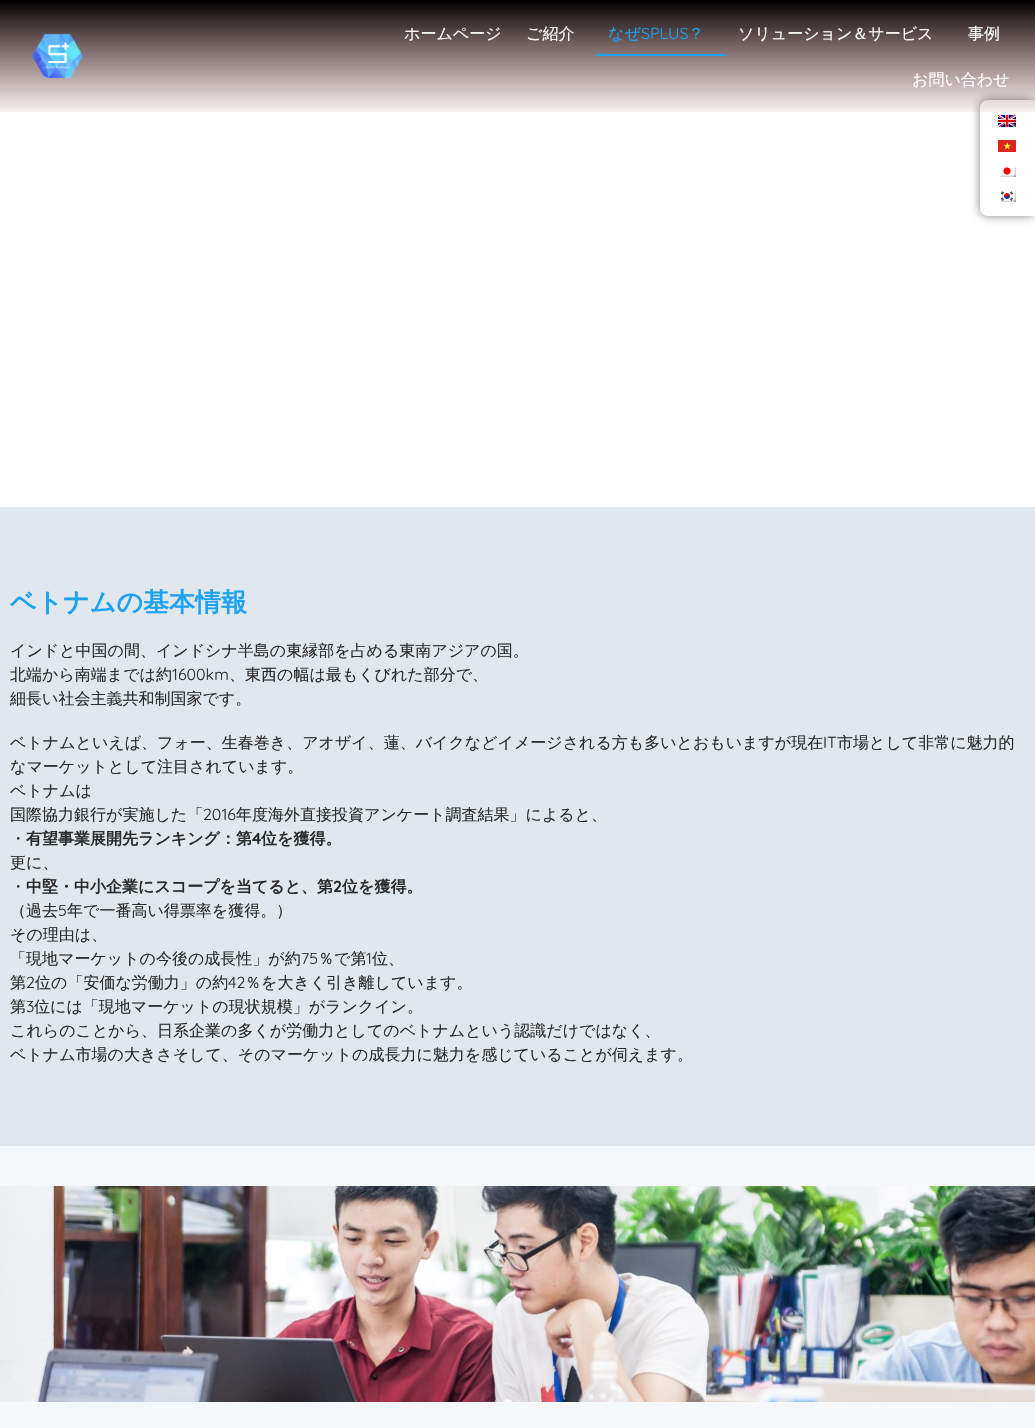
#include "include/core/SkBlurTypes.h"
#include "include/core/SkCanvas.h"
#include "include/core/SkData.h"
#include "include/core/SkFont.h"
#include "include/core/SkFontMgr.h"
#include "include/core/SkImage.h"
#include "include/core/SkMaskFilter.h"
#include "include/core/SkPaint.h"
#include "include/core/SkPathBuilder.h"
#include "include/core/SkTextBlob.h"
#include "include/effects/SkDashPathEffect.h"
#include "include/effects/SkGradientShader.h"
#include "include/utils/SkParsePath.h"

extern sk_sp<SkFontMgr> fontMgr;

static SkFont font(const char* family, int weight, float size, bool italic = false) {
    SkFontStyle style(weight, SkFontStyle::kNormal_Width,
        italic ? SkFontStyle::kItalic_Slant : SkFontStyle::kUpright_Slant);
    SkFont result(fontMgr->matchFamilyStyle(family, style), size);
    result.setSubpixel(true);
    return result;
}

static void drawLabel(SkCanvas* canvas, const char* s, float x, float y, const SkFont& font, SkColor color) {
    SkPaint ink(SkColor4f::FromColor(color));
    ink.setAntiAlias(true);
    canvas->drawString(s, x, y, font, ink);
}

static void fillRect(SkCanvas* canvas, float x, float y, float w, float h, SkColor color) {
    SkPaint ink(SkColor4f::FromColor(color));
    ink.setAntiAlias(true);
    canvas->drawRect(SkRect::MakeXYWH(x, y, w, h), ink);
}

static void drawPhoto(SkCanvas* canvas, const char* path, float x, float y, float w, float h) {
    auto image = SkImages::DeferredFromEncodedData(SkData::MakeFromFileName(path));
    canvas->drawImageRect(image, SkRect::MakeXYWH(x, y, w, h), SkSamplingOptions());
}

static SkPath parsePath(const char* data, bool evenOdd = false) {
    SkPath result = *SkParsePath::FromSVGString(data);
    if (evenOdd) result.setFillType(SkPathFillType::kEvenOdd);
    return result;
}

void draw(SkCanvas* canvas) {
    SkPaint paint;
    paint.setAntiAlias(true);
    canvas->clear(0xFFFFFFFF);
    paint.setColor(0x80000000);
    paint.setMaskFilter(SkMaskFilter::MakeBlur(kNormal_SkBlurStyle, 5));
    canvas->drawRoundRect(SkRect::MakeXYWH(980, 100, 55, 116), 8, 8, paint);
    paint.setMaskFilter(nullptr);
    paint.setColor(0xFFFFFFFF);
    canvas->drawPath(parsePath("M988 100H1035V216H988C983.5 216 980 212.5 980 208V108C980 103.5 983.5 100 988 100Z"), paint);
    {
        const SkColor colors[] = {0xFF000000, 0x0D4A0202};
        const float stops[] = {0, 1};
        const SkPoint ends[] = {{518, 0}, {518, 112}};
        paint.setShader(SkGradientShader::MakeLinear(ends, colors, stops, 2, SkTileMode::kClamp));
        paint.setAlpha(255);
    }
    canvas->drawRect(SkRect::MakeXYWH(0, 0, 1035, 112), paint);
    drawPhoto(canvas, "assets/img1.png", 31, 33, 53, 46);
    SkFont font1 = font("WenQuanYi Zen Hei", 500, 16);
    drawLabel(canvas, "ホームページ", 404, 39, font1, 0xFFFFFFFF);
    drawLabel(canvas, "ご紹介", 526, 39, font1, 0xFFFFFFFF);
    drawLabel(canvas, "なぜ", 608, 39, font1, 0xFF1DA1F2);
    SkFont font2 = font("Quicksand", 400, 16);
    drawLabel(canvas, "SPLUS", 641, 39, font2, 0xFF1DA1F2);
    drawLabel(canvas, "？", 688, 39, font1, 0xFF1DA1F2);
    fillRect(canvas, 596, 54, 130, 2, 0xFF1DA1F2);
    drawLabel(canvas, "ソリューション＆サービス", 738, 39, font1, 0xFFFFFFFF);
    drawLabel(canvas, "事例", 968, 39, font1, 0xFFFFFFFF);
    drawLabel(canvas, "お問い合わせ", 912, 85, font1, 0xFFFFFFFF);
    drawPhoto(canvas, "assets/img2.png", 998, 115, 18, 12);
    drawPhoto(canvas, "assets/img3.png", 998, 140, 18, 12);
    drawPhoto(canvas, "assets/img4.png", 1000, 167, 16, 10);
    drawPhoto(canvas, "assets/img5.png", 1000, 191, 16, 11);
    fillRect(canvas, 0, 507, 1035, 639, 0xFFE1E8ED);
    SkFont font3 = font("WenQuanYi Zen Hei", 700, 26);
    drawLabel(canvas, "ベトナムの基本情報", 10, 611, font3, 0xFF1DA1F2);
    drawLabel(canvas, "インドと中国の間、インドシナ半島の東縁部を占める東南アジアの国。", 10, 656, font1, 0xFF2B2B2B);
    drawLabel(canvas, "北端から南端までは約", 10, 680, font1, 0xFF2B2B2B);
    drawLabel(canvas, "1600km", 172, 680, font2, 0xFF2B2B2B);
    drawLabel(canvas, "、東西の幅は最もくびれた部分で、", 229, 680, font1, 0xFF2B2B2B);
    drawLabel(canvas, "細長い社会主義共和制国家です。", 10, 704, font1, 0xFF2B2B2B);
    drawLabel(canvas, "ベトナムといえば、フォー、生春巻き、アオザイ、蓮、バイクなどイメージされる方も多いとおもいますが現在", 10, 748, font1, 0xFF2B2B2B);
    drawLabel(canvas, "IT", 823, 748, font2, 0xFF2B2B2B);
    drawLabel(canvas, "市場として非常に魅力的", 837, 748, font1, 0xFF2B2B2B);
    drawLabel(canvas, "なマーケットとして注目されています。", 10, 772, font1, 0xFF2B2B2B);
    drawLabel(canvas, "ベトナムは", 10, 796, font1, 0xFF2B2B2B);
    drawLabel(canvas, "国際協力銀行が実施した「", 10, 820, font1, 0xFF2B2B2B);
    drawLabel(canvas, "2016", 203, 820, font2, 0xFF2B2B2B);
    drawLabel(canvas, "年度海外直接投資アンケート調査結果」によると、", 236, 820, font1, 0xFF2B2B2B);
    drawLabel(canvas, "・", 10, 844, font1, 0xFF2B2B2B);
    SkFont font4 = font("WenQuanYi Zen Hei", 700, 16);
    drawLabel(canvas, "有望事業展開先ランキング：第", 26, 844, font4, 0xFF2B2B2B);
    SkFont font5 = font("Quicksand", 700, 16);
    drawLabel(canvas, "4", 252, 844, font5, 0xFF2B2B2B);
    drawLabel(canvas, "位を獲得。", 261, 844, font4, 0xFF2B2B2B);
    drawLabel(canvas, "更に、", 10, 868, font1, 0xFF2B2B2B);
    drawLabel(canvas, "・", 10, 892, font1, 0xFF2B2B2B);
    drawLabel(canvas, "中堅・中小企業にスコープを当てると、第", 26, 892, font4, 0xFF2B2B2B);
    drawLabel(canvas, "2", 333, 892, font5, 0xFF2B2B2B);
    drawLabel(canvas, "位を獲得。", 342, 892, font4, 0xFF2B2B2B);
    drawLabel(canvas, "（過去", 10, 916, font1, 0xFF2B2B2B);
    drawLabel(canvas, "5", 58, 916, font2, 0xFF2B2B2B);
    drawLabel(canvas, "年で一番高い得票率を獲得。）", 67, 916, font1, 0xFF2B2B2B);
    drawLabel(canvas, "その理由は、", 10, 940, font1, 0xFF2B2B2B);
    drawLabel(canvas, "「現地マーケットの今後の成長性」が約", 10, 964, font1, 0xFF2B2B2B);
    drawLabel(canvas, "75", 301, 964, font2, 0xFF2B2B2B);
    drawLabel(canvas, "％で第", 318, 964, font1, 0xFF2B2B2B);
    drawLabel(canvas, "1", 366, 964, font2, 0xFF2B2B2B);
    drawLabel(canvas, "位、", 372, 964, font1, 0xFF2B2B2B);
    drawLabel(canvas, "第", 10, 988, font1, 0xFF2B2B2B);
    drawLabel(canvas, "2", 26, 988, font2, 0xFF2B2B2B);
    drawLabel(canvas, "位の「安価な労働力」の約", 35, 988, font1, 0xFF2B2B2B);
    drawLabel(canvas, "42", 228, 988, font2, 0xFF2B2B2B);
    drawLabel(canvas, "％を大きく引き離しています。", 245, 988, font1, 0xFF2B2B2B);
    drawLabel(canvas, "第", 10, 1012, font1, 0xFF2B2B2B);
    drawLabel(canvas, "3", 26, 1012, font2, 0xFF2B2B2B);
    drawLabel(canvas, "位には「現地マーケットの現状規模」がランクイン。", 34, 1012, font1, 0xFF2B2B2B);
    drawLabel(canvas, "これらのことから、日系企業の多くが労働力としてのベトナムという認識だけではなく、", 10, 1036, font1, 0xFF2B2B2B);
    drawLabel(canvas, "ベトナム市場の大きさそして、そのマーケットの成長力に魅力を感じていることが伺えます。", 10, 1060, font1, 0xFF2B2B2B);
    fillRect(canvas, 0, 1146, 1035, 282, 0xFFF5F8FA);
    drawPhoto(canvas, "assets/img6.png", 0, 1186, 1035, 216);
}
